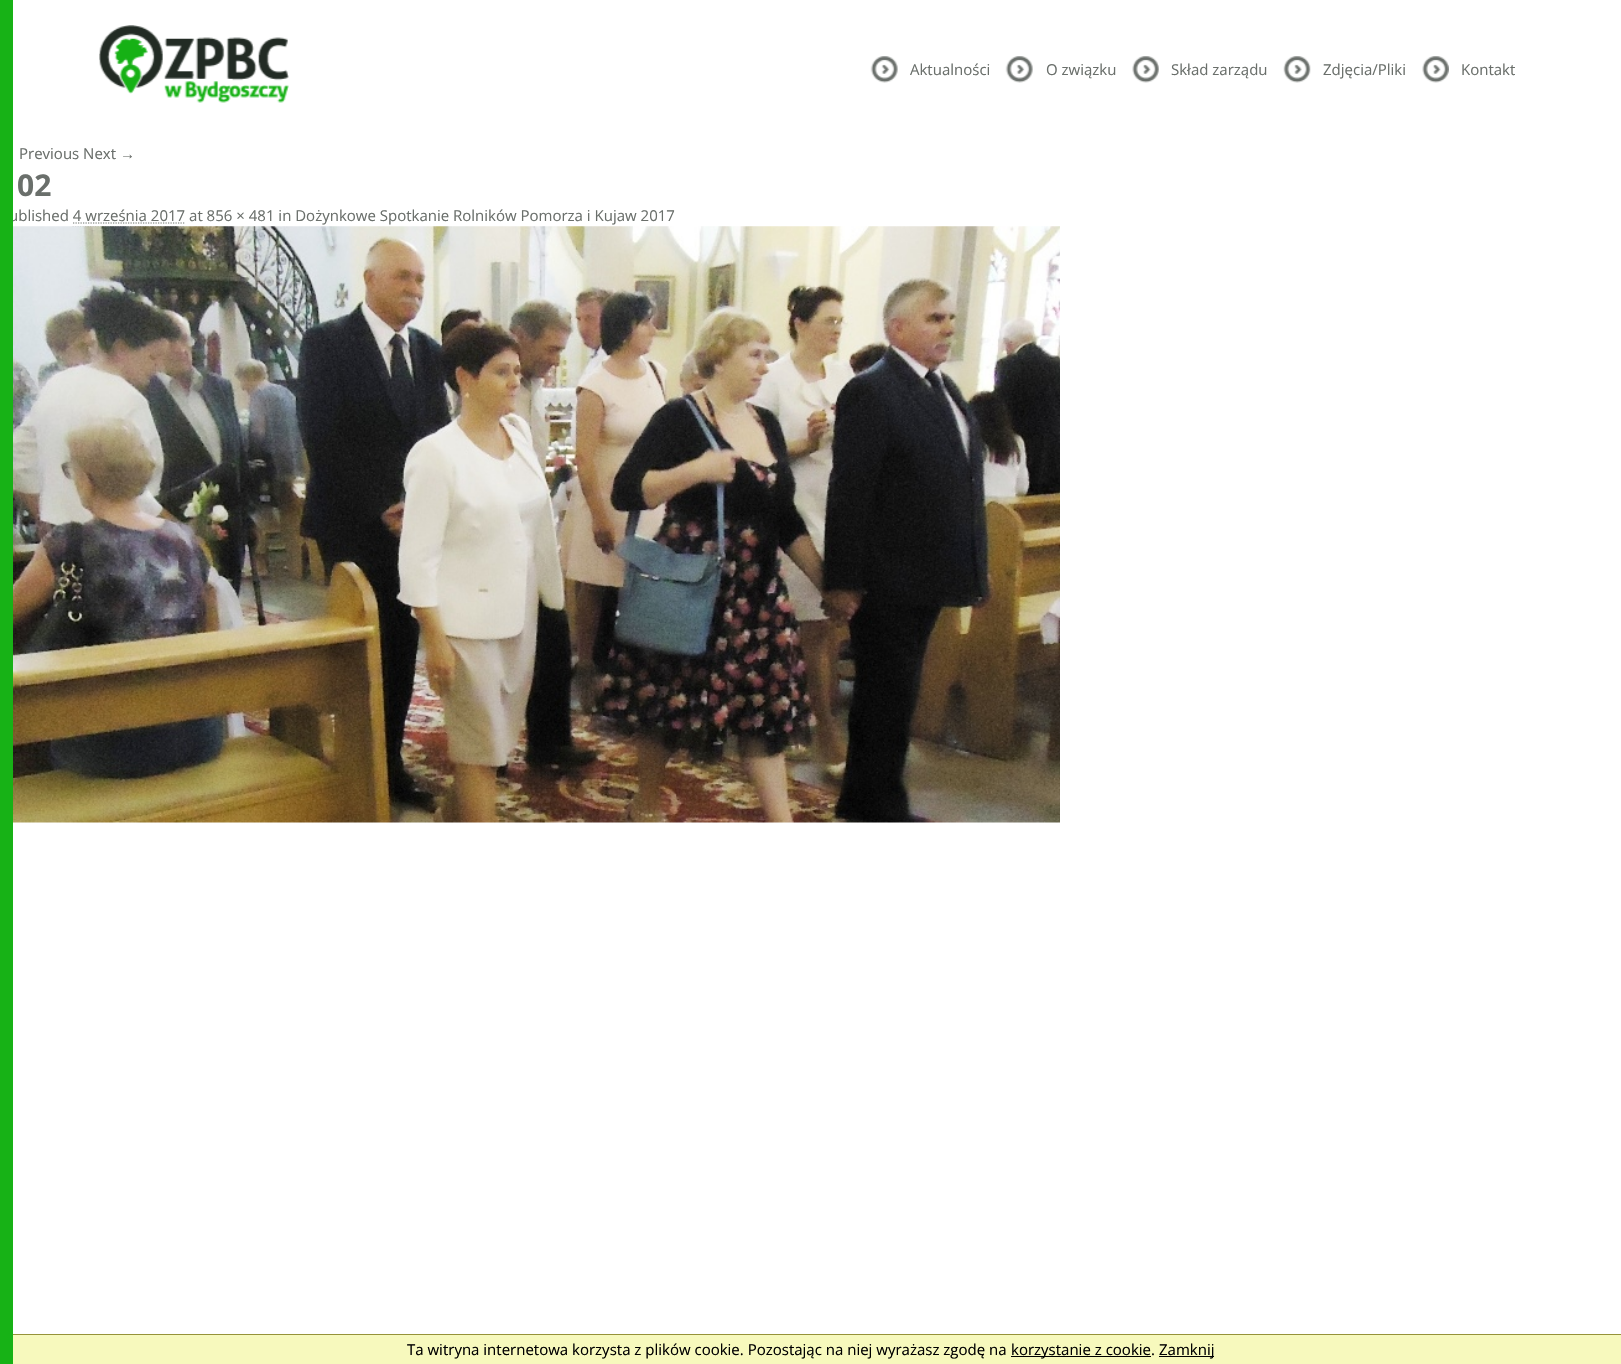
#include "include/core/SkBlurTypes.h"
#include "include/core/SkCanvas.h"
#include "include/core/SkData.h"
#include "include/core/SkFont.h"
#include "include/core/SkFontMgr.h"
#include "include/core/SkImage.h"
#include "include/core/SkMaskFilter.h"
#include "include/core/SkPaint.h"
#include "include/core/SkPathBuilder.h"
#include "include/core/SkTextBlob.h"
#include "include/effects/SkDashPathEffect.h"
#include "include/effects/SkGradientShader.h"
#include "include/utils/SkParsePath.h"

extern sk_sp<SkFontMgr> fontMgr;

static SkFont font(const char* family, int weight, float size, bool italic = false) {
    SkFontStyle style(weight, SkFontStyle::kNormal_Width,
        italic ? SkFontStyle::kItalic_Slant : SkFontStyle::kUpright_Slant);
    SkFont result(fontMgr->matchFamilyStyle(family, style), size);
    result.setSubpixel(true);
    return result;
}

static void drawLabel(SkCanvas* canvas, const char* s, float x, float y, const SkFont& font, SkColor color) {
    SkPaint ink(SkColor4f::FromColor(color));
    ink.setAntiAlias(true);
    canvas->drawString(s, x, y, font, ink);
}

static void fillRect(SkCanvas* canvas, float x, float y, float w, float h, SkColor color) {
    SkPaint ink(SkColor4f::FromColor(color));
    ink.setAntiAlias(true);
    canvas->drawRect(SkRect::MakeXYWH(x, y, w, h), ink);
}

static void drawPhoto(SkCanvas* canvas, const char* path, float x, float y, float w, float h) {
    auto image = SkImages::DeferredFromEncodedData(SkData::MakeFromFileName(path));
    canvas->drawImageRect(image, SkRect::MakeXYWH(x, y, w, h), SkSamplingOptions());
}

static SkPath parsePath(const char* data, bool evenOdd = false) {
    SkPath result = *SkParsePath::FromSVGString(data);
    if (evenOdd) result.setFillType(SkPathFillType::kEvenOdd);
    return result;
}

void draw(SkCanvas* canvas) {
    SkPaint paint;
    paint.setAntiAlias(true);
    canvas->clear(0xFFFFFFFF);
    SkFont font1 = font("Open Sans", 400, 15);
    drawLabel(canvas, "ublished 4 września 2017 at 856 × 481 in Dożynkowe Spotkanie Rolników Pomorza i Kujaw 2017", 9, 221, font1, 0xFF6A6F6B);
    fillRect(canvas, 0, 0, 13, 1364, 0xFF17B216);
    drawPhoto(canvas, "assets/img1.png", 99, 25, 190, 78);
    drawPhoto(canvas, "assets/img2.png", 870, 56, 28, 27);
    drawLabel(canvas, "Aktualności", 910, 75, font1, 0xFF6A6F6B);
    drawPhoto(canvas, "assets/img2.png", 1005, 56, 28, 27);
    drawLabel(canvas, "O związku", 1046, 75, font1, 0xFF6A6F6B);
    drawPhoto(canvas, "assets/img3.png", 1132, 56, 27, 27);
    drawLabel(canvas, "Skład zarządu", 1171, 75, font1, 0xFF6A6F6B);
    drawPhoto(canvas, "assets/img4.png", 1283, 56, 28, 27);
    drawLabel(canvas, "Zdjęcia/Pliki", 1323, 75, font1, 0xFF6A6F6B);
    drawPhoto(canvas, "assets/img5.png", 1422, 56, 27, 27);
    drawLabel(canvas, "Kontakt", 1461, 75, font1, 0xFF6A6F6B);
    drawLabel(canvas, "Previous Next", 19, 159, font1, 0xFF6A6F6B);
    SkFont font2 = font("Liberation Sans", 400, 15);
    drawLabel(canvas, "→", 120, 159, font2, 0xFF6A6F6B);
    SkFont font3 = font("Open Sans", 700, 30);
    drawLabel(canvas, "02", 17, 196, font3, 0xFF6A6F6B);
    paint.setStroke(true);
    paint.setStrokeWidth(1.2f);
    paint.setColor(0xFF6A6F6B);
    paint.setPathEffect(SkDashPathEffect::Make({{1.25f, 1.25f}}, 0));
    canvas->drawPath(parsePath("M73 223H185"), paint);
    paint.setPathEffect(nullptr);
    paint.setPathEffect(SkDashPathEffect::Make({{1.25f, 1.25f}}, 0));
    canvas->drawPath(parsePath("M72.5 227H185"), paint);
    paint.setPathEffect(nullptr);
    drawPhoto(canvas, "assets/img6.png", 13, 226, 1047, 597);
    fillRect(canvas, 13, 1335, 1608, 29, 0xFFF7F9BD);
    fillRect(canvas, 13, 1334, 1608, 1, 0xFF969339);
    drawLabel(canvas, "Ta witryna internetowa korzysta z plików cookie. Pozostając na niej wyrażasz zgodę na", 407, 1355, font1, 0xFF000000);
    fillRect(canvas, 1011, 1356, 140, 1, 0xFF000000);
    drawLabel(canvas, "korzystanie z cookie.", 1011, 1355, font1, 0xFF000000);
    fillRect(canvas, 1159, 1356, 55, 1, 0xFF000000);
    drawLabel(canvas, "Zamknij", 1159, 1355, font1, 0xFF000000);
}
